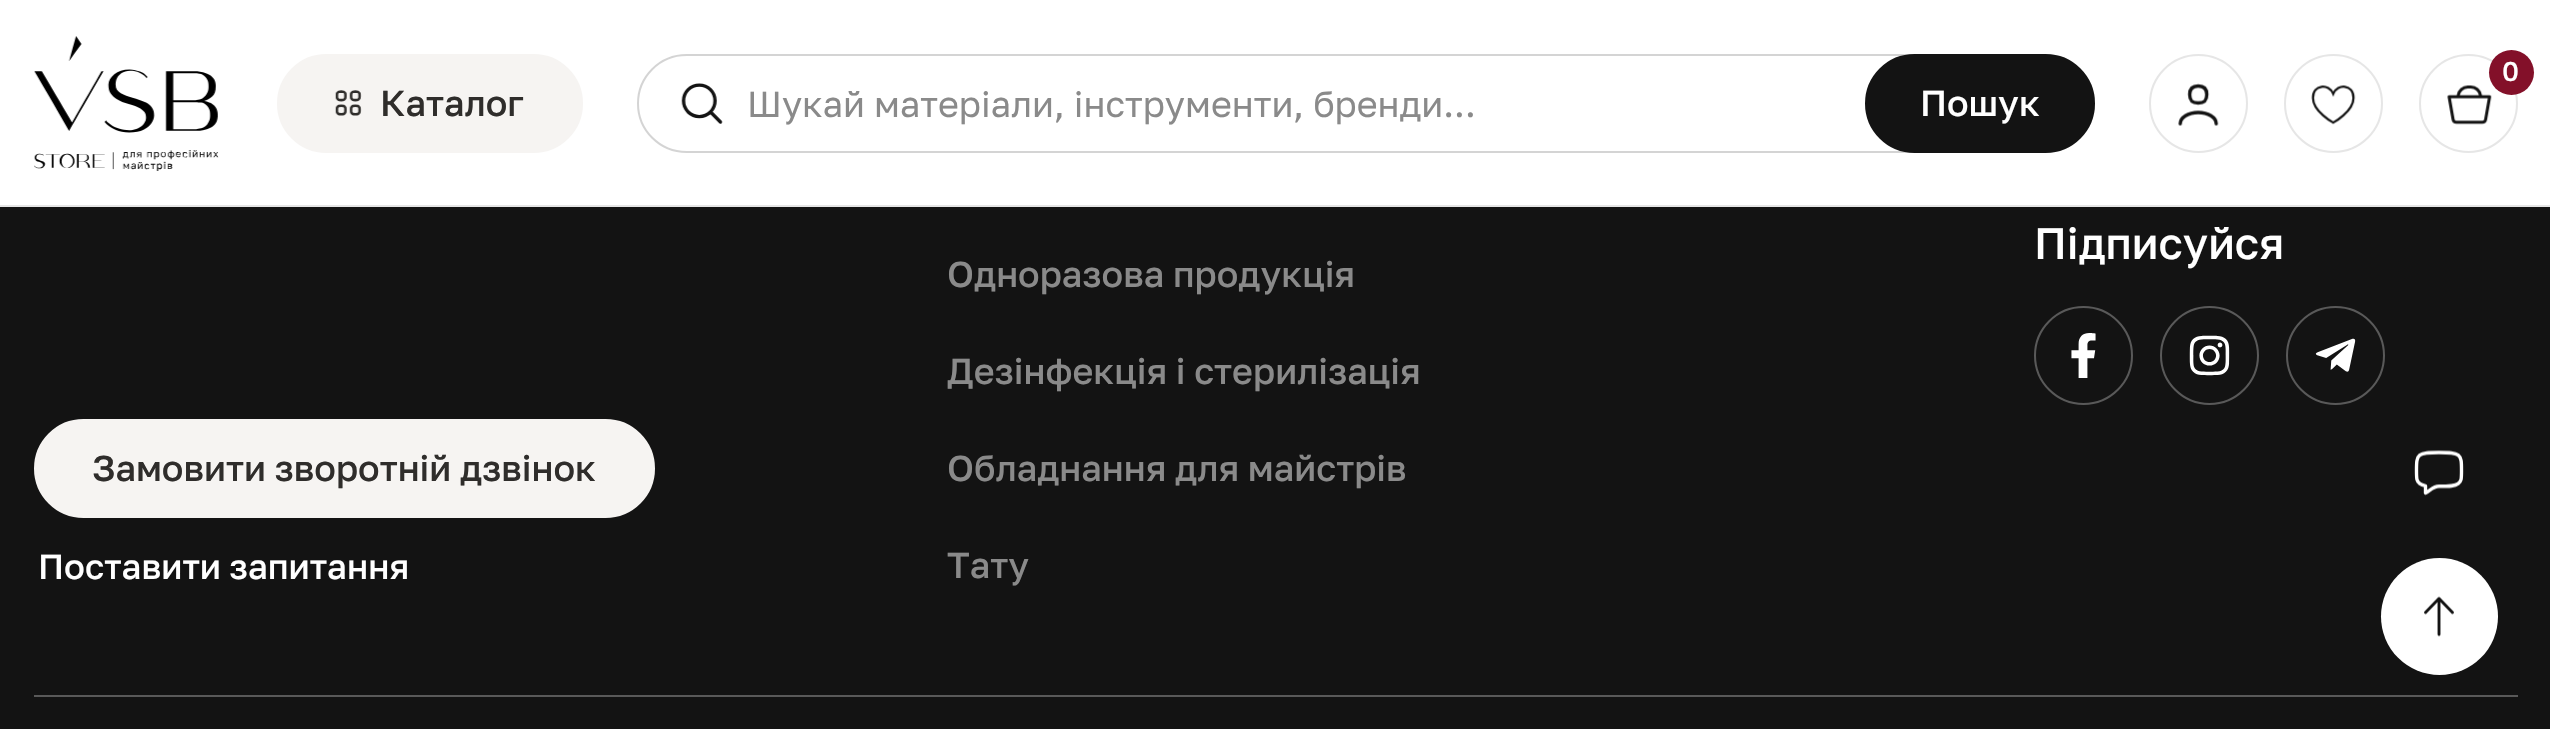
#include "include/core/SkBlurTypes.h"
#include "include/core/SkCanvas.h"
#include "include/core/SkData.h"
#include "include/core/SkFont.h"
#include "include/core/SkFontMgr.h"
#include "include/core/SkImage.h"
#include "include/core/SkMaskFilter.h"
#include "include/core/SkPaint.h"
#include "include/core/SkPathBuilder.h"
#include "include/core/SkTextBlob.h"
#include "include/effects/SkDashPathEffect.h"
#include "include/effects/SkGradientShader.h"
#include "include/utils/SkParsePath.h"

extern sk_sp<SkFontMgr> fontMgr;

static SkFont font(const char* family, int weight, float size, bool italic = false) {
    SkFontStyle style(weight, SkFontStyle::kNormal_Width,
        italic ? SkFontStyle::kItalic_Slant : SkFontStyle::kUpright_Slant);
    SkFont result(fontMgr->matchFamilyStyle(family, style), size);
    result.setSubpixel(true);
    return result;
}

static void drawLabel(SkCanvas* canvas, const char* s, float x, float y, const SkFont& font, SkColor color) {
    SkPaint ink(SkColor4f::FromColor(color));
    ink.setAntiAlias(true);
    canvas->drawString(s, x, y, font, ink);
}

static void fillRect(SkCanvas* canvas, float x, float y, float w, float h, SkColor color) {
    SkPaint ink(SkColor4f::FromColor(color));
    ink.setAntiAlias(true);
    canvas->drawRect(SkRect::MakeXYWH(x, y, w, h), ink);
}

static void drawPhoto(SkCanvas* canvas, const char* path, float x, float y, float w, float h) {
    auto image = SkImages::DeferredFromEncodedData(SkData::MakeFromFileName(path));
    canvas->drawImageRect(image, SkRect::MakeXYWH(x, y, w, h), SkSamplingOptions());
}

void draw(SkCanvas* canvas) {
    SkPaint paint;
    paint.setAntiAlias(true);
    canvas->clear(0xFF131313);
    fillRect(canvas, 0, 0, 2550, 205, 0xFFFFFFFF);
    drawPhoto(canvas, "assets/img1.png", 34, 36, 185, 135);
    paint.setStroke(true);
    paint.setStrokeWidth(2);
    paint.setColor(0xFFE6E6E6);
    canvas->drawCircle(2198.5f, 103.5f, 48.5f, paint);
    drawPhoto(canvas, "assets/img2.png", 2178, 83, 41, 43);
    canvas->drawCircle(2333.5f, 103.5f, 48.5f, paint);
    drawPhoto(canvas, "assets/img3.png", 2311, 85, 45, 40);
    canvas->drawCircle(2468.5f, 103.5f, 48.5f, paint);
    drawPhoto(canvas, "assets/img4.png", 2447, 85, 45, 40);
    paint.setStroke(false);
    paint.setColor(0xFF831029);
    canvas->drawCircle(2511.5f, 72.5f, 22.5f, paint);
    SkFont font1 = font("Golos", 500, 27);
    drawLabel(canvas, "0", 2502, 81, font1, 0xFFFFFFFF);
    paint.setColor(0xFFF6F4F2);
    canvas->drawRoundRect(SkRect::MakeXYWH(279.5f, 56.5f, 301, 94), 47, 47, paint);
    paint.setStroke(true);
    paint.setStrokeWidth(5);
    canvas->drawRoundRect(SkRect::MakeXYWH(279.5f, 56.5f, 301, 94), 47, 47, paint);
    drawPhoto(canvas, "assets/img5.png", 335, 90, 27, 26);
    SkFont font2 = font("Golos", 500, 36);
    drawLabel(canvas, "Каталог", 380, 116, font2, 0xFF2F2D2B);
    paint.setStrokeWidth(2);
    paint.setColor(0xFFD4D4D4);
    canvas->drawRoundRect(SkRect::MakeXYWH(638, 55, 1456, 97), 48.5f, 48.5f, paint);
    drawPhoto(canvas, "assets/img6.png", 681, 83, 42, 41);
    SkFont font3 = font("Golos", 400, 36);
    drawLabel(canvas, "Шукай матеріали, інструменти, бренди...", 747, 117, font3, 0xFF8A8A8A);
    paint.setStroke(false);
    paint.setColor(0xFF131313);
    canvas->drawRoundRect(SkRect::MakeXYWH(1867.5f, 56.5f, 225, 94), 47, 47, paint);
    paint.setStroke(true);
    paint.setStrokeWidth(5);
    canvas->drawRoundRect(SkRect::MakeXYWH(1867.5f, 56.5f, 225, 94), 47, 47, paint);
    drawLabel(canvas, "Пошук", 1920, 116, font2, 0xFFFFFFFF);
    fillRect(canvas, 0, 205, 2550, 2, 0xFFE6E6E6);
    SkFont font4 = font("Golos", 500, 43.75f);
    drawLabel(canvas, "Підписуйся", 2034, 259, font4, 0xFFFFFFFF);
    paint.setStrokeWidth(2);
    paint.setColor(0xFF595959);
    canvas->drawCircle(2083.5f, 355.5f, 48.5f, paint);
    drawPhoto(canvas, "assets/img7.png", 2071, 333, 25, 45);
    canvas->drawCircle(2209.5f, 355.5f, 48.5f, paint);
    drawPhoto(canvas, "assets/img8.png", 2189, 335, 41, 41);
    canvas->drawCircle(2335.5f, 355.5f, 48.5f, paint);
    drawPhoto(canvas, "assets/img9.png", 2315, 338, 41, 34);
    paint.setStroke(false);
    paint.setColor(0xFFF6F4F2);
    canvas->drawRoundRect(SkRect::MakeXYWH(36.5f, 421.5f, 616, 94), 47, 47, paint);
    paint.setStroke(true);
    paint.setStrokeWidth(5);
    canvas->drawRoundRect(SkRect::MakeXYWH(36.5f, 421.5f, 616, 94), 47, 47, paint);
    drawLabel(canvas, "Замовити зворотній дзвінок", 92, 481, font2, 0xFF2F2D2B);
    SkFont font5 = font("Golos", 500, 34.75f);
    drawLabel(canvas, "Поставити запитання", 38, 579, font5, 0xFFFFFFFF);
    drawLabel(canvas, "Одноразова продукція", 947, 287, font2, 0xFF8A8A8A);
    drawLabel(canvas, "Дезінфекція і стерилізація", 947, 384, font2, 0xFF8A8A8A);
    drawLabel(canvas, "Обладнання для майстрів", 947, 481, font2, 0xFF8A8A8A);
    drawLabel(canvas, "Тату", 947, 578, font2, 0xFF8A8A8A);
    fillRect(canvas, 34, 695, 2484, 2, 0xFF595959);
    drawPhoto(canvas, "assets/img10.png", 2414, 450, 50, 46);
    paint.setStroke(false);
    paint.setColor(0xFFFFFFFF);
    canvas->drawCircle(2439.5f, 616.5f, 58.5f, paint);
    drawPhoto(canvas, "assets/img11.png", 2424, 596, 30, 41);
}
